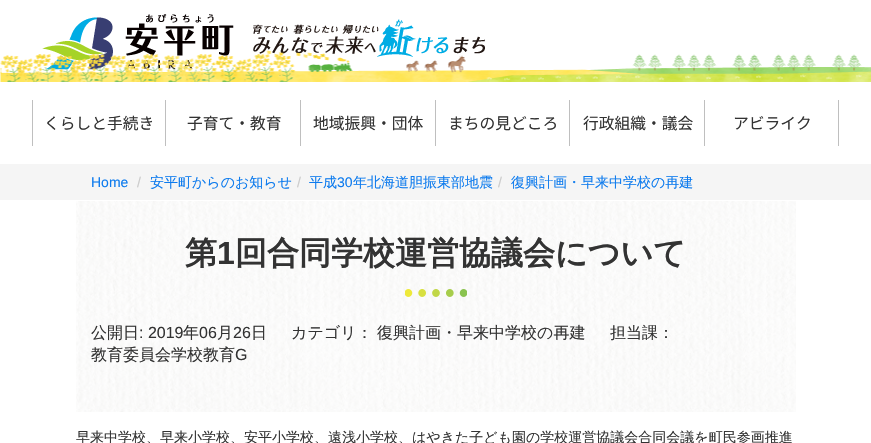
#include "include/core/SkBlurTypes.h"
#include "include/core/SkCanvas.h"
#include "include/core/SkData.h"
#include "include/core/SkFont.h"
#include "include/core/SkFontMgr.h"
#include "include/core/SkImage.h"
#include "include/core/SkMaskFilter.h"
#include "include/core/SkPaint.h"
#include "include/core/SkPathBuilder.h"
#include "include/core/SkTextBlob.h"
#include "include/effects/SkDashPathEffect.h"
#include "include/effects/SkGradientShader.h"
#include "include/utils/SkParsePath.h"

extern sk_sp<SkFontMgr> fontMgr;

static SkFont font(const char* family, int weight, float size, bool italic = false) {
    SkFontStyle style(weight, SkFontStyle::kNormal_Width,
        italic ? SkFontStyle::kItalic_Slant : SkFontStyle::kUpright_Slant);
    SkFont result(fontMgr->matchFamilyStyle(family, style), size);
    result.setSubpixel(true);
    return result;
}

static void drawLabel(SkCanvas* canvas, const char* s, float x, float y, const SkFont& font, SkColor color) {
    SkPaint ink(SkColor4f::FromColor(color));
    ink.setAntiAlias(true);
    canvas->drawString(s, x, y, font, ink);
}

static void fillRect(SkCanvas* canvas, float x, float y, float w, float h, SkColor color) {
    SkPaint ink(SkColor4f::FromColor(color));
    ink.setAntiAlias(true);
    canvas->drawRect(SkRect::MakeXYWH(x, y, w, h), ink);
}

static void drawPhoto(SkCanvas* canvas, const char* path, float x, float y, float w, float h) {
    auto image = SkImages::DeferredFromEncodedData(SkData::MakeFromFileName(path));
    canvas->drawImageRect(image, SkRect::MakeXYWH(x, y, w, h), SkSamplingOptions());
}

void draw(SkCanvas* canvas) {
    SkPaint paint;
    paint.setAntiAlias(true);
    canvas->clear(0xFFFFFFFF);
    drawPhoto(canvas, "assets/img1.png", 42, 14, 443, 56);
    drawPhoto(canvas, "assets/img2.png", 0, 50, 871, 32);
    fillRect(canvas, 32, 100, 1, 46, 0xFFBFBFBF);
    SkFont font1 = font("Noto Sans JP", 400, 15.75f);
    drawLabel(canvas, "くらしと手続き", 44, 129, font1, 0xFF333333);
    fillRect(canvas, 165, 100, 1, 46, 0xFFBFBFBF);
    drawLabel(canvas, "子育て・教育", 187, 129, font1, 0xFF333333);
    fillRect(canvas, 300, 100, 1, 46, 0xFFBFBFBF);
    drawLabel(canvas, "地域振興・団体", 313, 129, font1, 0xFF333333);
    fillRect(canvas, 435, 100, 1, 46, 0xFFBFBFBF);
    drawLabel(canvas, "まちの見どころ", 448, 129, font1, 0xFF333333);
    fillRect(canvas, 569, 100, 1, 46, 0xFFBFBFBF);
    drawLabel(canvas, "行政組織・議会", 583, 129, font1, 0xFF333333);
    fillRect(canvas, 704, 100, 1, 46, 0xFFBFBFBF);
    drawLabel(canvas, "アビライク", 733, 129, font1, 0xFF333333);
    fillRect(canvas, 838, 100, 1, 46, 0xFFBFBFBF);
    fillRect(canvas, 0, 164, 871, 36, 0xFFF5F5F5);
    SkFont font2 = font("Liberation Sans", 400, 14);
    drawLabel(canvas, "Home", 91, 187, font2, 0xFF0D7BEE);
    drawLabel(canvas, "/", 137, 187, font2, 0xFFCCCCCC);
    SkFont font3 = font("WenQuanYi Zen Hei", 500, 14);
    drawLabel(canvas, "安平町からのお知らせ", 150, 187, font3, 0xFF0D7BEE);
    drawLabel(canvas, "/", 297, 187, font2, 0xFFCCCCCC);
    drawLabel(canvas, "平成", 309, 187, font3, 0xFF0D7BEE);
    drawLabel(canvas, "30", 337, 187, font2, 0xFF0D7BEE);
    drawLabel(canvas, "年北海道胆振東部地震", 353, 187, font3, 0xFF0D7BEE);
    drawLabel(canvas, "/", 498, 187, font2, 0xFFCCCCCC);
    drawLabel(canvas, "復興計画・早来中学校の再建", 511, 187, font3, 0xFF0D7BEE);
    drawPhoto(canvas, "assets/img3.png", 76, 201, 720, 211);
    SkFont font4 = font("WenQuanYi Zen Hei", 700, 32);
    drawLabel(canvas, "第", 185, 264, font4, 0xFF333333);
    SkFont font5 = font("Liberation Sans", 700, 32);
    drawLabel(canvas, "1", 217, 264, font5, 0xFF333333);
    drawLabel(canvas, "回合同学校運営協議会について", 235, 264, font4, 0xFF333333);
    drawPhoto(canvas, "assets/img4.png", 405, 289, 62, 8);
    SkFont font6 = font("WenQuanYi Zen Hei", 500, 16);
    drawLabel(canvas, "公開日", 91, 338, font6, 0xFF333333);
    SkFont font7 = font("Liberation Sans", 400, 16);
    drawLabel(canvas, ": 2019", 139, 338, font7, 0xFF333333);
    drawLabel(canvas, "年", 183, 338, font6, 0xFF333333);
    drawLabel(canvas, "06", 199, 338, font7, 0xFF333333);
    drawLabel(canvas, "月", 217, 338, font6, 0xFF333333);
    drawLabel(canvas, "26", 233, 338, font7, 0xFF333333);
    drawLabel(canvas, "日", 251, 338, font6, 0xFF333333);
    drawLabel(canvas, "カテゴリ：", 291, 338, font6, 0xFF333333);
    drawLabel(canvas, "復興計画・早来中学校の再建", 377, 338, font6, 0xFF333333);
    drawLabel(canvas, "担当課：", 610, 338, font6, 0xFF333333);
    drawLabel(canvas, "教育委員会学校教育", 91, 360, font6, 0xFF333333);
    drawLabel(canvas, "G", 235, 360, font7, 0xFF333333);
    drawLabel(canvas, "早来中学校、早来小学校、安平小学校、遠浅小学校、はやきた子ども園の学校運営協議会合同会議を町民参画推進", 76, 442, font3, 0xFF333333);
}
